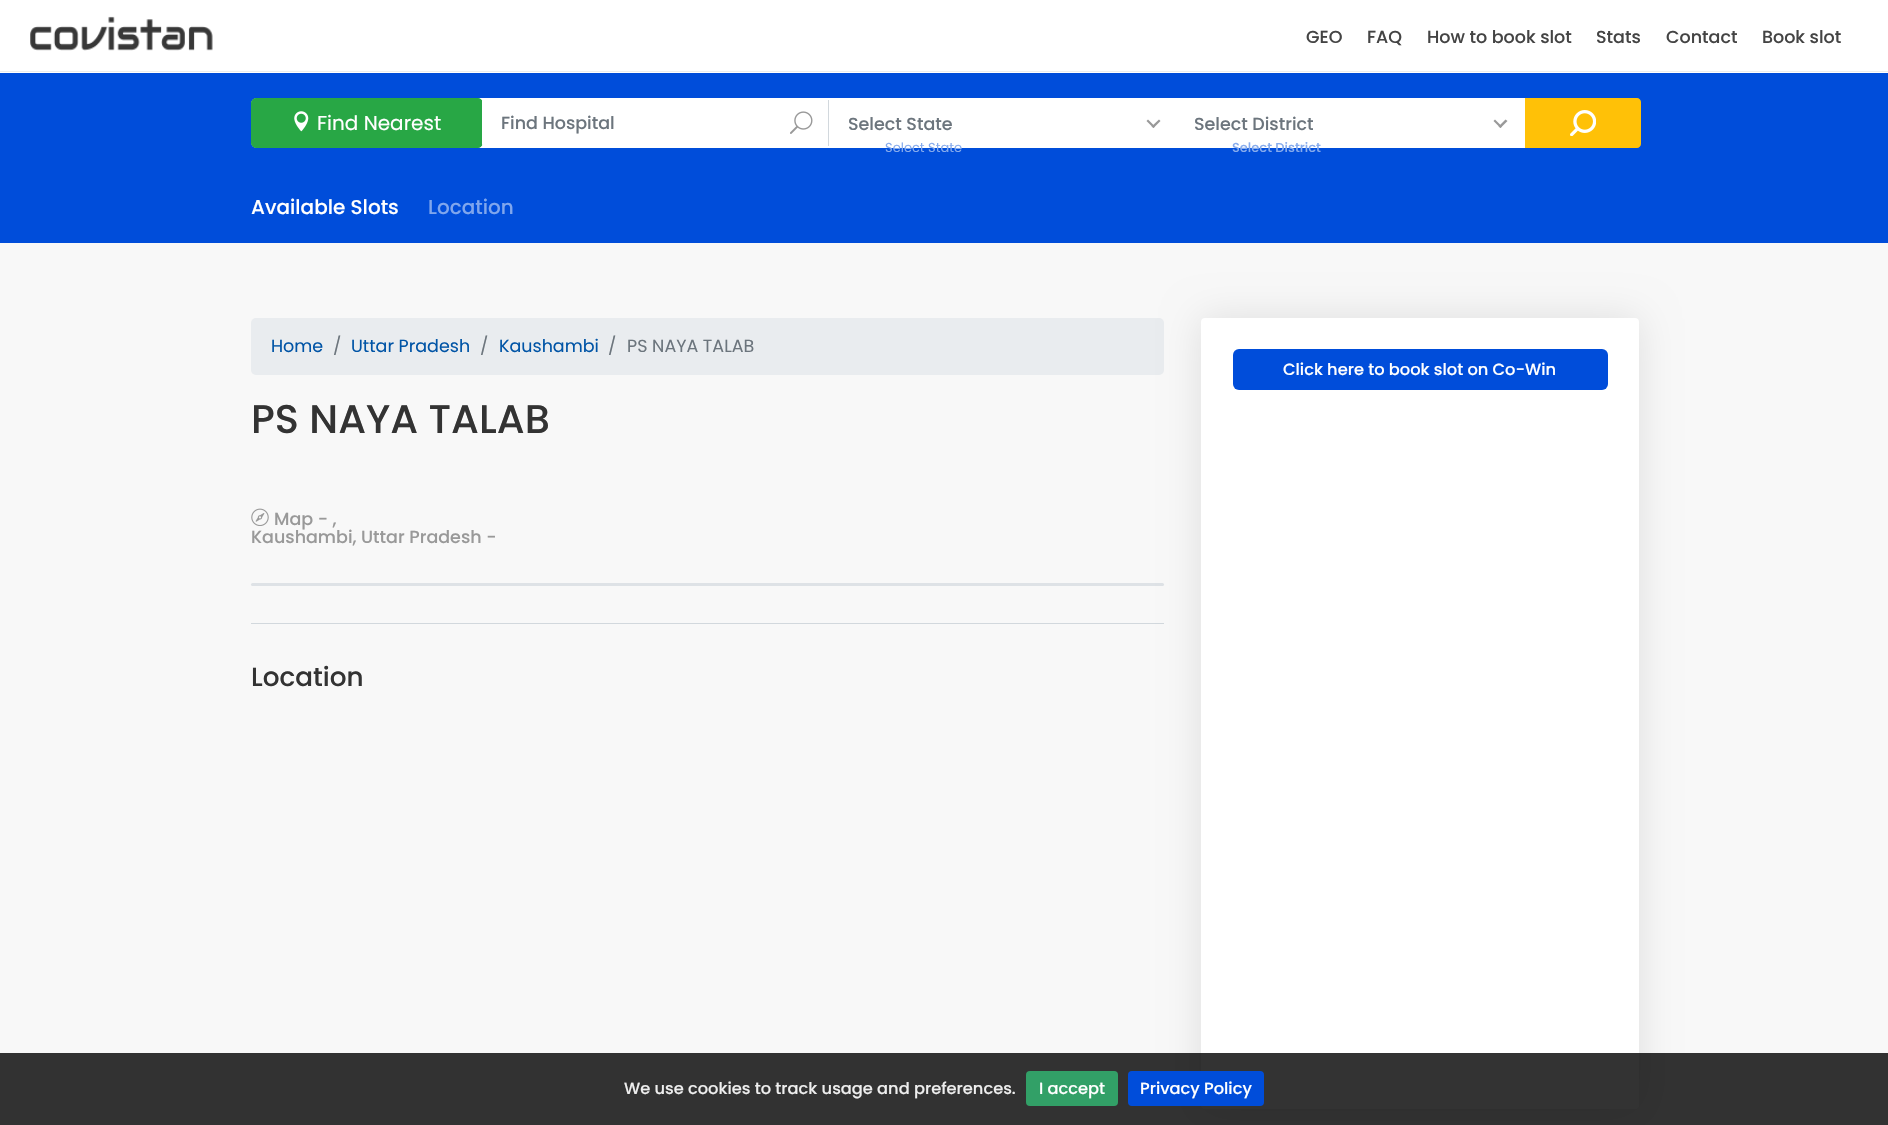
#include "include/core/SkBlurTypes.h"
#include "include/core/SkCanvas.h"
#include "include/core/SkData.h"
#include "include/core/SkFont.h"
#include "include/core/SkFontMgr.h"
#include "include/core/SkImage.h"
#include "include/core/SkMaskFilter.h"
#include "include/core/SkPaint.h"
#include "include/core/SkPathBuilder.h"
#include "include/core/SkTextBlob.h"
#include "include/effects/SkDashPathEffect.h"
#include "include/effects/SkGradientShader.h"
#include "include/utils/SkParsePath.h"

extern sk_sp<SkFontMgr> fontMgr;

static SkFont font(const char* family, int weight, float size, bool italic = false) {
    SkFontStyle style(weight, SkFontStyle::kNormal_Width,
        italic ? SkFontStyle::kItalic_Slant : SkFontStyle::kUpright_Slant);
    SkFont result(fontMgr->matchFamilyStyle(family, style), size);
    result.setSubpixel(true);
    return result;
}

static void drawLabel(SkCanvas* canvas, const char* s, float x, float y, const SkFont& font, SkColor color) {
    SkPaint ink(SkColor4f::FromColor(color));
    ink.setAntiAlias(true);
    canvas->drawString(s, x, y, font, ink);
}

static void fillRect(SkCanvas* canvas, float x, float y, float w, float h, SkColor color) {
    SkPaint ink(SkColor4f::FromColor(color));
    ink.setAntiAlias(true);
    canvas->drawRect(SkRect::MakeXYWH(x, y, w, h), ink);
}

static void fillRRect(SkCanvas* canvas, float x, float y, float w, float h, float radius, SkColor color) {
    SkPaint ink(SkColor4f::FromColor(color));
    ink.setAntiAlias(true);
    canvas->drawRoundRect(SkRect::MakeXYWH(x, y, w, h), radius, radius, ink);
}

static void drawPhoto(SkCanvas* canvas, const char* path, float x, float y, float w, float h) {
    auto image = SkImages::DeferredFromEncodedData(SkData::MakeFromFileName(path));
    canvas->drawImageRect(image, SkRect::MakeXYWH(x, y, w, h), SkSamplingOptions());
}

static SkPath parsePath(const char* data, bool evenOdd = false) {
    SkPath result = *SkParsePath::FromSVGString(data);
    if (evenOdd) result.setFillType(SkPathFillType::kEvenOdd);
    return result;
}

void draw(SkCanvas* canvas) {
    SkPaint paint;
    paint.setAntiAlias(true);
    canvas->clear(0xFFF8F8F8);
    fillRect(canvas, 0, 0, 1888, 73, 0xFFFFFFFF);
    fillRect(canvas, 0, 71, 1888, 1, 0xFFEDEDED);
    drawPhoto(canvas, "assets/img1.png", 30, 16, 183, 35);
    SkFont font1 = font("Poppins", 500, 17.5f);
    drawLabel(canvas, "GEO", 1306, 43, font1, 0xFF444444);
    drawLabel(canvas, "FAQ", 1367, 43, font1, 0xFF444444);
    drawLabel(canvas, "How to book slot", 1427, 43, font1, 0xFF444444);
    drawLabel(canvas, "Stats", 1596, 43, font1, 0xFF444444);
    drawLabel(canvas, "Contact", 1666, 43, font1, 0xFF444444);
    drawLabel(canvas, "Book slot", 1762, 43, font1, 0xFF444444);
    fillRect(canvas, 0, 73, 1888, 170, 0xFF004DDA);
    fillRRect(canvas, 251, 98, 1388, 50, 6, 0xFFFFFFFF);
    paint.setColor(0xFF28A745);
    canvas->drawRoundRect(SkRect::MakeXYWH(251.5f, 98.5f, 231, 49), 4.5f, 4.5f, paint);
    paint.setStroke(true);
    paint.setStrokeWidth(1);
    canvas->drawRoundRect(SkRect::MakeXYWH(251.5f, 98.5f, 231, 49), 4.5f, 4.5f, paint);
    drawPhoto(canvas, "assets/img2.png", 294, 111, 15, 21);
    SkFont font2 = font("Poppins", 400, 20);
    drawLabel(canvas, "Find Nearest", 317, 130, font2, 0xFFFFFFFF);
    paint.setStroke(false);
    paint.setColor(0xFFFFFFFF);
    canvas->drawPath(parsePath("M486 98H825C826 98 828 99 828 101V144C828 146 826 148 825 148H486C484 148 482 146 482 144V101C482 99 484 98 486 98Z"), paint);
    fillRect(canvas, 828, 100, 1, 46, 0xFFD2D8DD);
    drawLabel(canvas, "Find Hospital", 501, 129, font1, 0xFF6C757D);
    drawPhoto(canvas, "assets/img3.png", 790, 111, 23, 23);
    drawLabel(canvas, "Select State", 848, 130, font1, 0xFF6C757D);
    paint.setColor(0xFF999999);
    canvas->drawPath(parsePath("M1159 119.5L1160.5 121L1153.5 128L1151.5 126.5Z"), paint);
    canvas->drawPath(parsePath("M1148 119.5L1155 126.5L1153.5 128L1146.5 121Z"), paint);
    SkFont font3 = font("Poppins", 400, 13);
    drawLabel(canvas, "Select State", 885, 152, font3, 0xFF86ABED);
    drawLabel(canvas, "Select District", 1194, 130, font1, 0xFF6C757D);
    canvas->drawPath(parsePath("M1505.5 119.5L1507.5 121L1500.5 128L1498.5 126.5Z"), paint);
    canvas->drawPath(parsePath("M1495 119.5L1502 126.5L1500.5 128L1493.5 121Z"), paint);
    SkFont font4 = font("Poppins", 500, 13);
    drawLabel(canvas, "Select District", 1232, 152, font4, 0xFF86ABED);
    paint.setColor(0xFFFFC107);
    canvas->drawPath(parsePath("M1525 98H1637C1639 98 1641 100 1641 102V144C1641 146 1639 148 1637 148H1525Z"), paint);
    drawPhoto(canvas, "assets/img4.png", 1570, 110, 26, 26);
    SkFont font5 = font("Poppins", 500, 20);
    drawLabel(canvas, "Available Slots", 251, 214, font5, 0xFFFFFFFF);
    drawLabel(canvas, "Location", 428, 214, font5, 0xFF80A6ED);
    fillRRect(canvas, 251, 318, 913, 57, 5, 0xFFE9ECEF);
    fillRRect(canvas, 251, 583, 913, 3, 1.5f, 0xFFDEE2E6);
    fillRect(canvas, 251, 623, 913, 1, 0xFFD2D8DD);
    paint.setColor(0x1A000000);
    paint.setMaskFilter(SkMaskFilter::MakeBlur(kNormal_SkBlurStyle, 19));
    canvas->drawRoundRect(SkRect::MakeXYWH(1201, 318, 438, 791), 4, 4, paint);
    paint.setMaskFilter(nullptr);
    fillRRect(canvas, 1201, 318, 438, 791, 4, 0xFFFFFFFF);
    fillRect(canvas, 0, 1053, 1888, 72, 0xCC000000);
    SkFont font6 = font("Poppins", 500, 16.25f);
    drawLabel(canvas, "We use cookies to track usage and preferences.", 624, 1094, font6, 0xFFEEEEEE);
    fillRRect(canvas, 1026, 1071, 92, 35, 4, 0xFF32A067);
    drawLabel(canvas, "I accept", 1039, 1094, font6, 0xFFFFFFFF);
    fillRRect(canvas, 1128, 1071, 136, 35, 4, 0xFF004DDA);
    drawLabel(canvas, "Privacy Policy", 1140, 1094, font6, 0xFFFFFFFF);
    SkFont font7 = font("Poppins", 400, 17.5f);
    drawLabel(canvas, "Home", 271, 352, font7, 0xFF0054A6);
    drawLabel(canvas, "/", 333, 352, font7, 0xFF6C757D);
    drawLabel(canvas, "Uttar Pradesh", 351, 352, font7, 0xFF0054A6);
    drawLabel(canvas, "/", 480, 352, font7, 0xFF6C757D);
    drawLabel(canvas, "Kaushambi", 499, 352, font7, 0xFF0054A6);
    drawLabel(canvas, "/", 608, 352, font7, 0xFF6C757D);
    drawLabel(canvas, "PS NAYA TALAB", 627, 352, font7, 0xFF6C757D);
    SkFont font8 = font("Poppins", 500, 40);
    drawLabel(canvas, "PS NAYA TALAB", 251, 433, font8, 0xFF333333);
    drawPhoto(canvas, "assets/img5.png", 251, 508, 18, 18);
    drawLabel(canvas, "Map - ,", 274, 525, font1, 0xFF999999);
    drawLabel(canvas, "Kaushambi, Uttar Pradesh -", 251, 543, font1, 0xFF999999);
    SkFont font9 = font("Poppins", 500, 26.25f);
    drawLabel(canvas, "Location", 251, 686, font9, 0xFF333333);
    fillRRect(canvas, 1233, 349, 375, 41, 6, 0xFF004DDA);
    drawLabel(canvas, "Click here to book slot on Co-Win", 1283, 375, font6, 0xFFFFFFFF);
}
